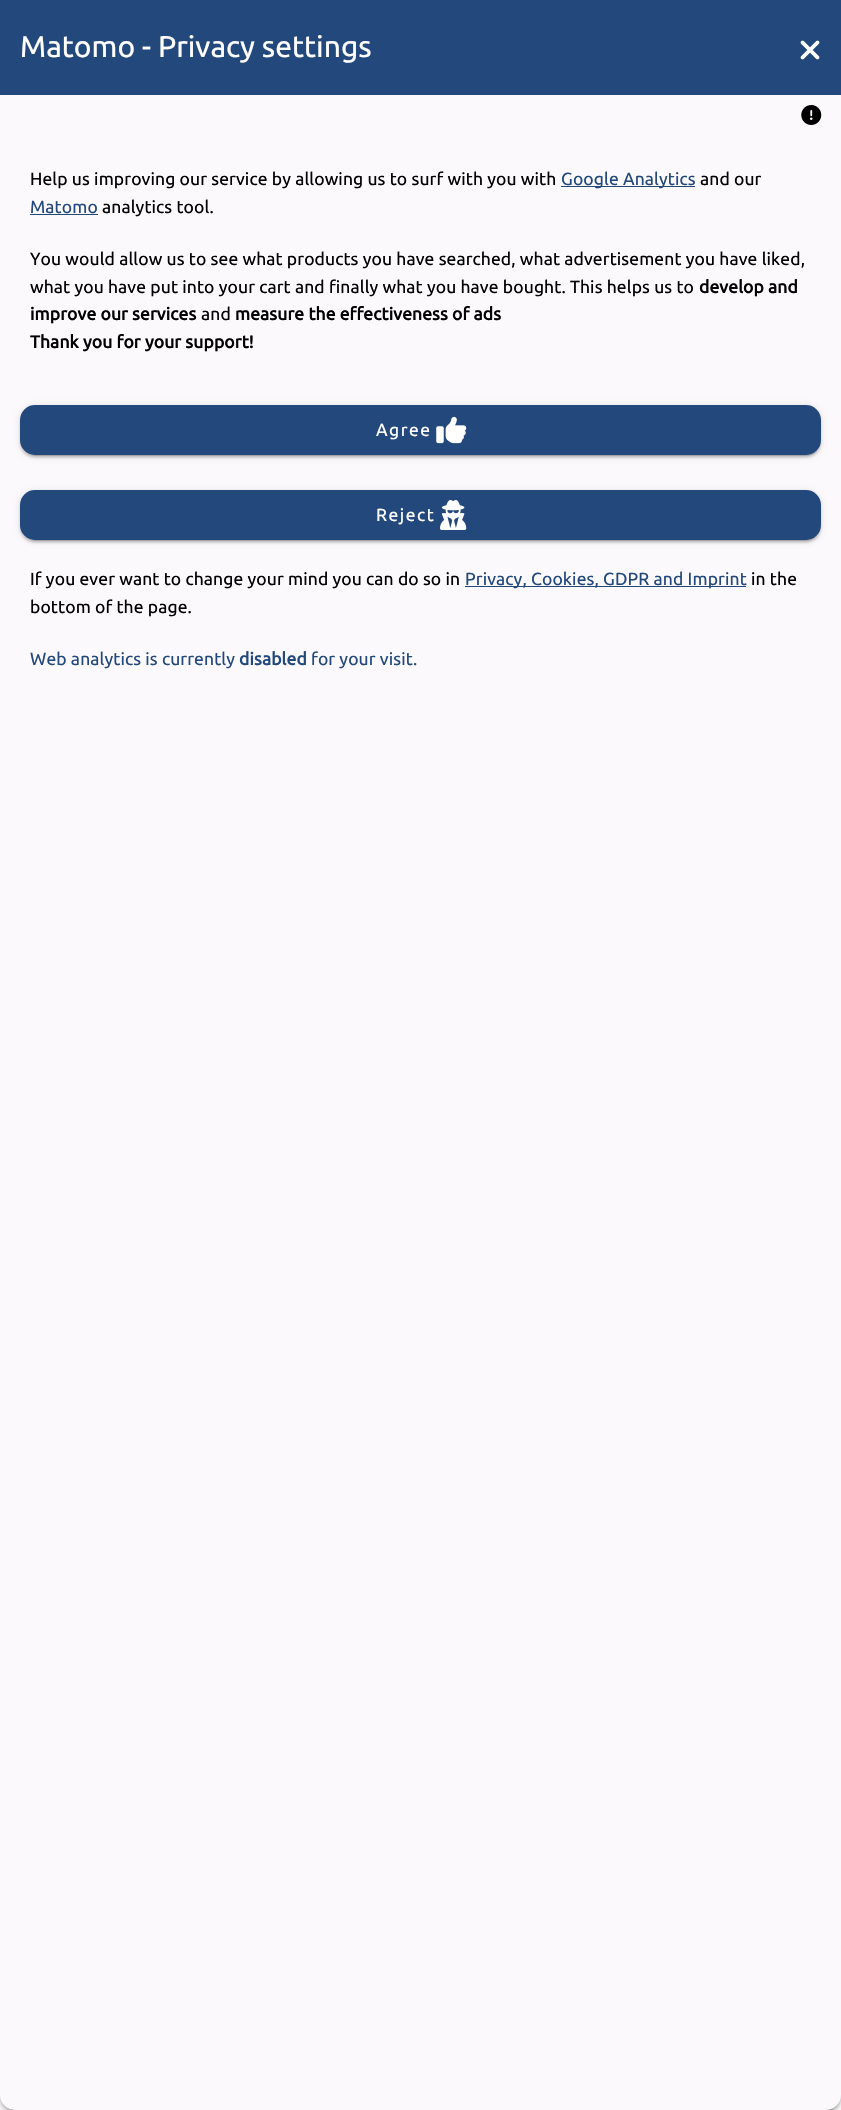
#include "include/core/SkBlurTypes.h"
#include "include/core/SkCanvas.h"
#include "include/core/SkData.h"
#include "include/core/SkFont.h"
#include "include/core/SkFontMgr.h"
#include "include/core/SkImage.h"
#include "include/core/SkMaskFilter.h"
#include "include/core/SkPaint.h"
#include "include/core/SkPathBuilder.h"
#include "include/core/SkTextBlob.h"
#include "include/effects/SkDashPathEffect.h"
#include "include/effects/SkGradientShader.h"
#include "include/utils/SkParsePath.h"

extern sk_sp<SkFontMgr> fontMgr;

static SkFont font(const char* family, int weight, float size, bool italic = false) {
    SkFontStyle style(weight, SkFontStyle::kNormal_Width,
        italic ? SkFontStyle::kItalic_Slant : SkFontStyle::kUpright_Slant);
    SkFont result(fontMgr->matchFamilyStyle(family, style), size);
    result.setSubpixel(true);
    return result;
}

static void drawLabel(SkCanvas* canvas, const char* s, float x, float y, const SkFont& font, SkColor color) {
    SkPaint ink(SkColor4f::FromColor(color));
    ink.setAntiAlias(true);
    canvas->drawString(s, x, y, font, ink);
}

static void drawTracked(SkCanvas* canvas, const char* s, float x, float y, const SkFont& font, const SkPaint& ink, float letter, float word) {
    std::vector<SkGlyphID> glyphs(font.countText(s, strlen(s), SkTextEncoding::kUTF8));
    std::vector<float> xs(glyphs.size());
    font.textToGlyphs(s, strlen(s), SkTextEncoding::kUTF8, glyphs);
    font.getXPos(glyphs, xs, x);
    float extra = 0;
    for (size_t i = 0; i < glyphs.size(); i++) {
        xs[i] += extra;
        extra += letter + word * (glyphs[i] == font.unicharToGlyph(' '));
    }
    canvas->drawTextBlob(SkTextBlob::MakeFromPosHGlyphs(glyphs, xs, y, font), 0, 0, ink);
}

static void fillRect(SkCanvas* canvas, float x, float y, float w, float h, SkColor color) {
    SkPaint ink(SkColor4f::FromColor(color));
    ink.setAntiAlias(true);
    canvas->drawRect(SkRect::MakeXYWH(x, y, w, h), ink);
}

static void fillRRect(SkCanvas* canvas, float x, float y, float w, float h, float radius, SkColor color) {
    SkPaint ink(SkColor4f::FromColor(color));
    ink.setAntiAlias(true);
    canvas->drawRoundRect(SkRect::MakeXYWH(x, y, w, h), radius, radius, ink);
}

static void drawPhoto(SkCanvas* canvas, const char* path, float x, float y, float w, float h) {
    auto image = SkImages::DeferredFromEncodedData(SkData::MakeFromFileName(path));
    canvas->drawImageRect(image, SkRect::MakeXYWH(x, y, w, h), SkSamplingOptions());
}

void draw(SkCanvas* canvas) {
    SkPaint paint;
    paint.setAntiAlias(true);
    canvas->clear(0xFFF5F5F5);
    paint.setColor(0x1F000000);
    paint.setMaskFilter(SkMaskFilter::MakeBlur(kNormal_SkBlurStyle, 3));
    canvas->drawRoundRect(SkRect::MakeXYWH(0, 1, 841, 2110), 15, 15, paint);
    paint.setMaskFilter(nullptr);
    paint.setColor(0x24000000);
    paint.setMaskFilter(SkMaskFilter::MakeBlur(kNormal_SkBlurStyle, 1));
    canvas->drawRoundRect(SkRect::MakeXYWH(0, 3, 841, 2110), 15, 15, paint);
    paint.setMaskFilter(nullptr);
    paint.setColor(0x33000000);
    paint.setMaskFilter(SkMaskFilter::MakeBlur(kNormal_SkBlurStyle, 0.5f));
    canvas->drawRoundRect(SkRect::MakeXYWH(3, 6, 836, 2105), 13, 13, paint);
    paint.setMaskFilter(nullptr);
    fillRRect(canvas, 0, 0, 841, 2110, 15, 0xFFFBF9FC);
    fillRect(canvas, 0, 0, 841, 95, 0xFF23487B);
    SkFont font1 = font("Ubuntu", 400, 30);
    drawLabel(canvas, "Matomo - Privacy settings", 20, 57, font1, 0xFFFFFFFF);
    drawPhoto(canvas, "assets/img1.png", 800, 40, 20, 20);
    drawPhoto(canvas, "assets/img2.png", 801, 105, 21, 20);
    SkFont font2 = font("Ubuntu", 400, 17.5f);
    paint.setColor(0xFF000000);
    drawTracked(canvas, "Help us improving our service by allowing us to surf with you with", 30, 185, font2, paint, 0.12f, 0);
    fillRect(canvas, 561, 186, 134, 1, 0xFF23487B);
    paint.setColor(0xFF23487B);
    drawTracked(canvas, "Google Analytics", 561, 185, font2, paint, 0.12f, 0);
    paint.setColor(0xFF000000);
    drawTracked(canvas, "and our", 700, 185, font2, paint, 0.12f, 0);
    paint.setColor(0xFF23487B);
    drawTracked(canvas, "Matomo", 30, 213, font2, paint, 0.12f, 0);
    fillRect(canvas, 30, 214, 68, 1, 0xFF23487B);
    paint.setColor(0xFF000000);
    drawTracked(canvas, "analytics tool.", 102, 213, font2, paint, 0.12f, 0);
    drawTracked(canvas, "You would allow us to see what products you have searched, what advertisement you have liked,", 30, 265, font2, paint, 0.12f, 0);
    drawTracked(canvas, "what you have put into your cart and finally what you have bought. This helps us to", 30, 293, font2, paint, 0.12f, 0);
    SkFont font3 = font("Ubuntu", 700, 17.5f);
    drawTracked(canvas, "develop and", 699, 293, font3, paint, 0.12f, 0);
    drawTracked(canvas, "improve our services", 30, 320, font3, paint, 0.12f, 0);
    drawTracked(canvas, "and", 201, 320, font2, paint, 0.12f, 0);
    drawTracked(canvas, "measure the effectiveness of ads", 235, 320, font3, paint, 0.12f, 0);
    drawTracked(canvas, "Thank you for your support!", 30, 348, font3, paint, 0.12f, 0);
    paint.setColor(0x1F000000);
    paint.setMaskFilter(SkMaskFilter::MakeBlur(kNormal_SkBlurStyle, 3));
    canvas->drawRoundRect(SkRect::MakeXYWH(20, 406, 801, 50), 15, 15, paint);
    paint.setMaskFilter(nullptr);
    paint.setColor(0x24000000);
    paint.setMaskFilter(SkMaskFilter::MakeBlur(kNormal_SkBlurStyle, 1));
    canvas->drawRoundRect(SkRect::MakeXYWH(20, 408, 801, 50), 15, 15, paint);
    paint.setMaskFilter(nullptr);
    paint.setColor(0x33000000);
    paint.setMaskFilter(SkMaskFilter::MakeBlur(kNormal_SkBlurStyle, 0.5f));
    canvas->drawRoundRect(SkRect::MakeXYWH(23, 411, 796, 45), 13, 13, paint);
    paint.setMaskFilter(nullptr);
    fillRRect(canvas, 20, 405, 801, 50, 15, 0xFF23487B);
    paint.setColor(0xFFFFFFFF);
    drawTracked(canvas, "Agree", 376, 436, font2, paint, 1.5f, 0);
    drawPhoto(canvas, "assets/img3.png", 436, 416, 31, 28);
    paint.setColor(0x1F000000);
    paint.setMaskFilter(SkMaskFilter::MakeBlur(kNormal_SkBlurStyle, 3));
    canvas->drawRoundRect(SkRect::MakeXYWH(20, 491, 801, 50), 15, 15, paint);
    paint.setMaskFilter(nullptr);
    paint.setColor(0x24000000);
    paint.setMaskFilter(SkMaskFilter::MakeBlur(kNormal_SkBlurStyle, 1));
    canvas->drawRoundRect(SkRect::MakeXYWH(20, 493, 801, 50), 15, 15, paint);
    paint.setMaskFilter(nullptr);
    paint.setColor(0x33000000);
    paint.setMaskFilter(SkMaskFilter::MakeBlur(kNormal_SkBlurStyle, 0.5f));
    canvas->drawRoundRect(SkRect::MakeXYWH(23, 496, 796, 45), 13, 13, paint);
    paint.setMaskFilter(nullptr);
    fillRRect(canvas, 20, 490, 801, 50, 15, 0xFF23487B);
    paint.setColor(0xFFFFFFFF);
    drawTracked(canvas, "Reject", 376, 521, font2, paint, 1.5f, 0);
    drawPhoto(canvas, "assets/img4.png", 440, 500, 27, 30);
    paint.setColor(0xFF000000);
    drawTracked(canvas, "If you ever want to change your mind you can do so in", 30, 585, font2, paint, 0.12f, 0);
    fillRect(canvas, 465, 586, 281, 1, 0xFF23487B);
    paint.setColor(0xFF23487B);
    drawTracked(canvas, "Privacy, Cookies, GDPR and Imprint", 465, 585, font2, paint, 0.12f, 0);
    paint.setColor(0xFF000000);
    drawTracked(canvas, "in the", 751, 585, font2, paint, 0.12f, 0);
    drawTracked(canvas, "bottom of the page.", 30, 613, font2, paint, 0.12f, 0);
    paint.setColor(0xFF23487B);
    drawTracked(canvas, "Web analytics is currently", 30, 665, font2, paint, 0.12f, 0);
    drawTracked(canvas, "disabled", 239, 665, font3, paint, 0.12f, 0);
    drawTracked(canvas, "for your visit.", 311, 665, font2, paint, 0.12f, 0);
}
